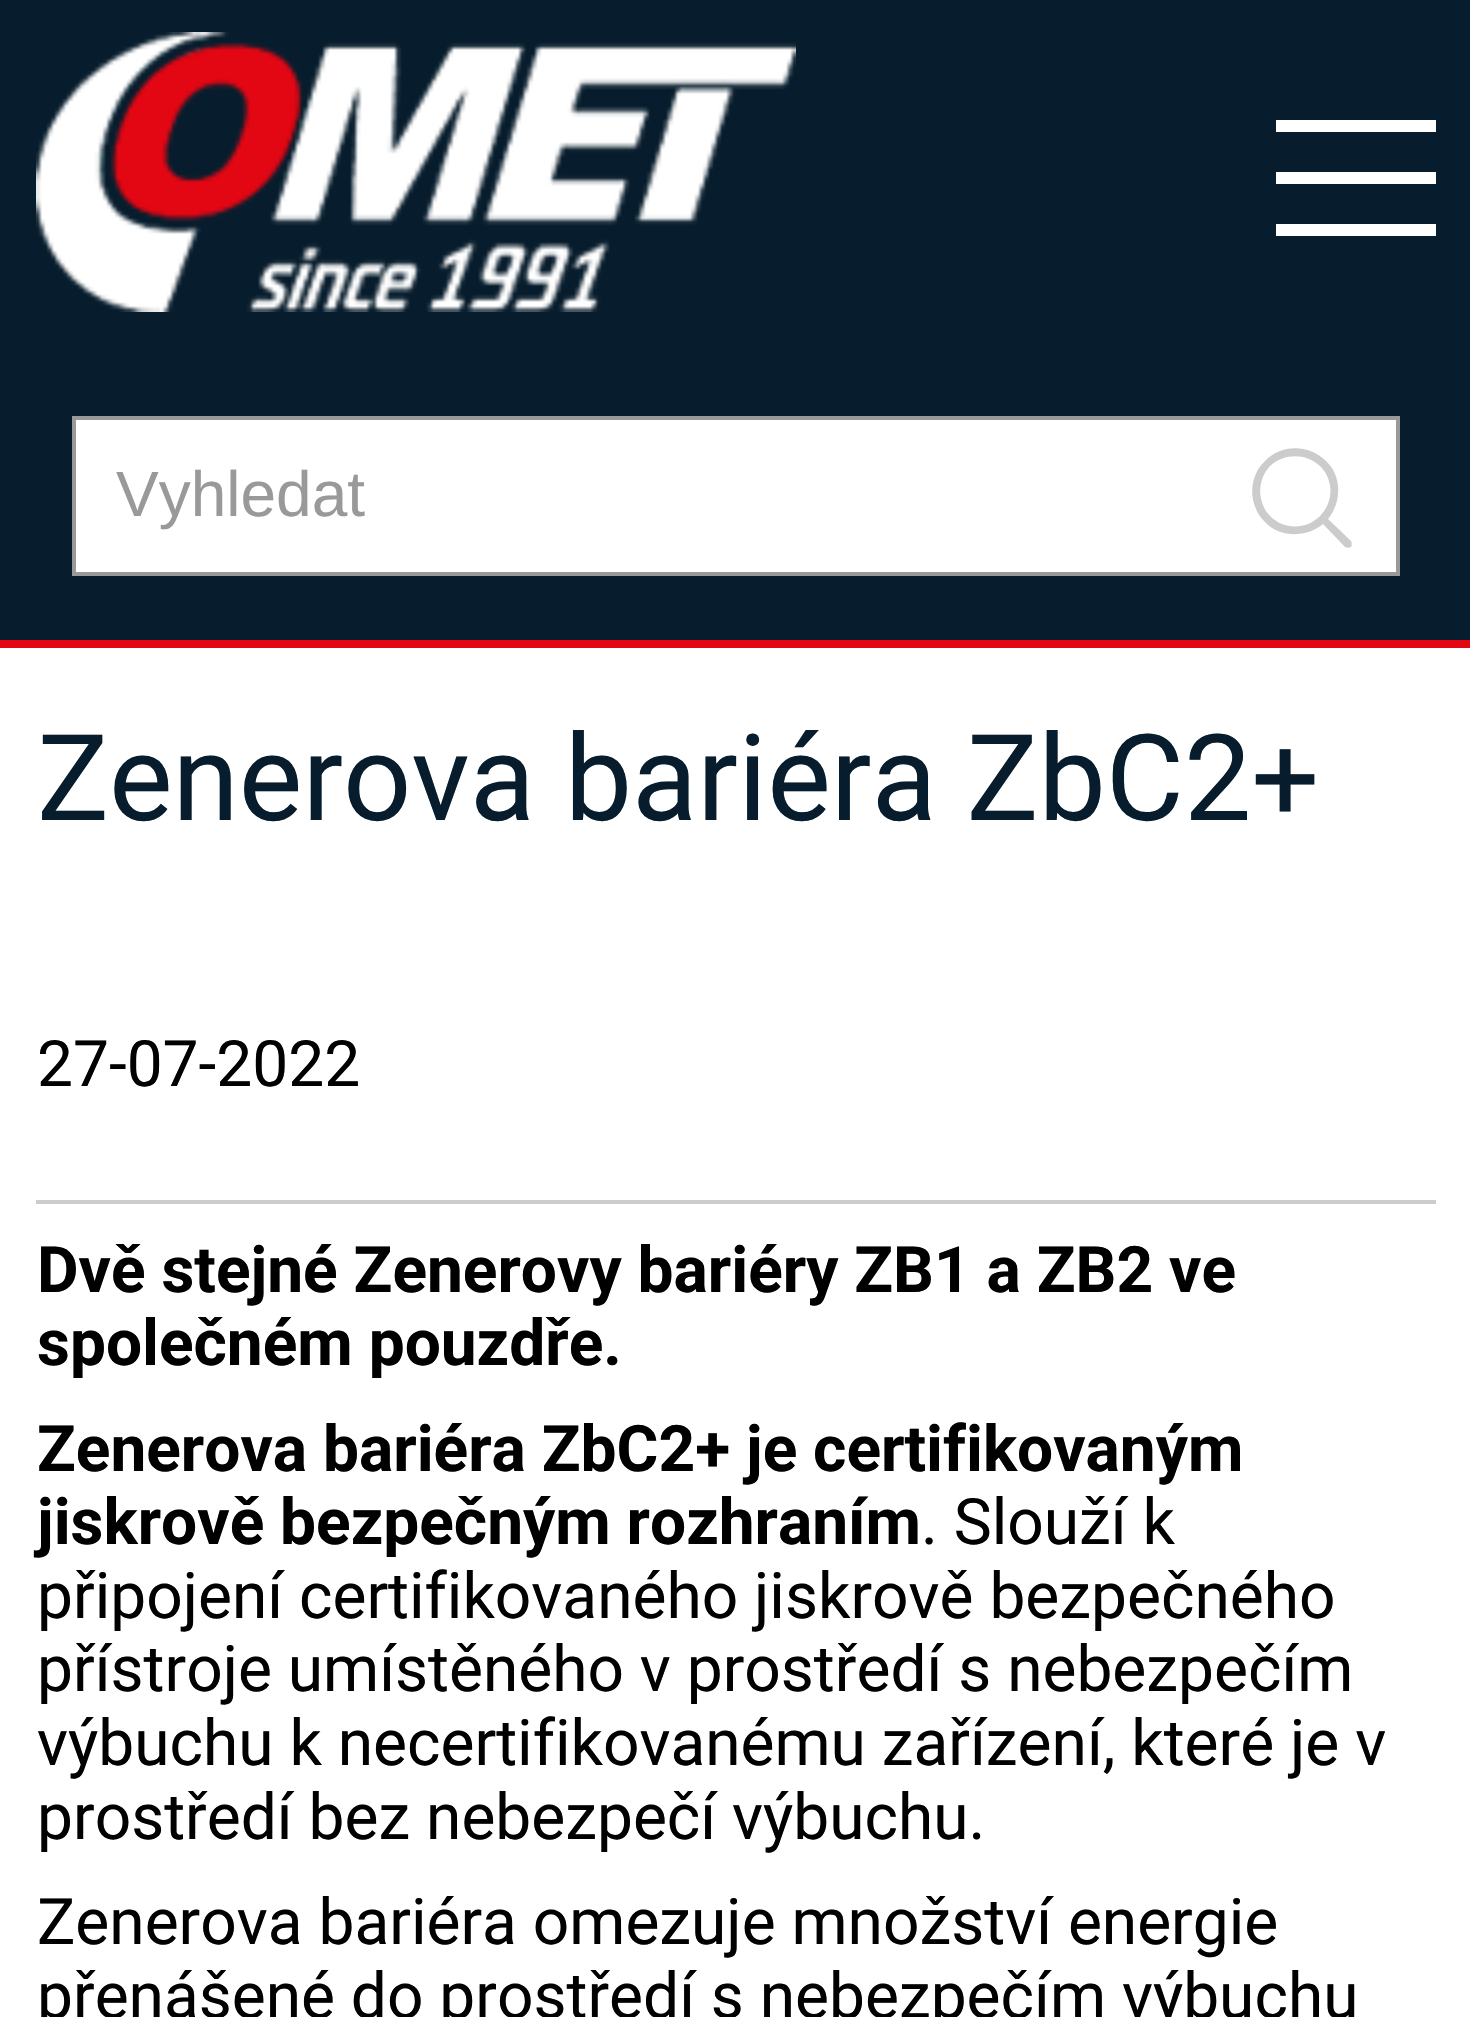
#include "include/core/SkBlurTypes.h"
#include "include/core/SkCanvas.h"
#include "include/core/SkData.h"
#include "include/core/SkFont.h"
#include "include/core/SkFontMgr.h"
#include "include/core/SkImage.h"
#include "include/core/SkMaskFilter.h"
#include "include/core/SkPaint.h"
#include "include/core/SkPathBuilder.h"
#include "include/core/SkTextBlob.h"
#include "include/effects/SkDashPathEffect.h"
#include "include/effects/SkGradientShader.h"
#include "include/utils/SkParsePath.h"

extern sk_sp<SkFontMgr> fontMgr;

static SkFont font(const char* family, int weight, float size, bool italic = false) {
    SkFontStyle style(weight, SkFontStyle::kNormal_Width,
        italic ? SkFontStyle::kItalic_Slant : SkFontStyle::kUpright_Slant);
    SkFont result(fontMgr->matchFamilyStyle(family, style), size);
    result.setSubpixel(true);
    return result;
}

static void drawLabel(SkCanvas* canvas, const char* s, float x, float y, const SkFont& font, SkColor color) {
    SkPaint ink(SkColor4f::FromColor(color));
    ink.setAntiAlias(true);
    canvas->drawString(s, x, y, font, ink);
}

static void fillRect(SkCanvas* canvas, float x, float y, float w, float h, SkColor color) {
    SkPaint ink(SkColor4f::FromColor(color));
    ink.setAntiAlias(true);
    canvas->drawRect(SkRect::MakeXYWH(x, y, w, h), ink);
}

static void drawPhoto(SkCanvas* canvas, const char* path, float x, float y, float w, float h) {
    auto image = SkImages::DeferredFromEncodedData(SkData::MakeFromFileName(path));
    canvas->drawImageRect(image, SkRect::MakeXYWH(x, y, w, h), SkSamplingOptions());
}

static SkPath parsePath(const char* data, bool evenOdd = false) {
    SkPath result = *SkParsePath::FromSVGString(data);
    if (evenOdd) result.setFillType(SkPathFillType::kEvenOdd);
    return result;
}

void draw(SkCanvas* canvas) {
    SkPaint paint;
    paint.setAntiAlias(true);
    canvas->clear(0xFFFFFFFF);
    fillRect(canvas, 0, 0, 1470, 640, 0xFF071D2D);
    drawPhoto(canvas, "assets/img1.png", 36, 32, 760, 280);
    fillRect(canvas, 1276, 120, 160, 12, 0xFFFFFFFF);
    fillRect(canvas, 1276, 172, 160, 12, 0xFFFFFFFF);
    fillRect(canvas, 1276, 224, 160, 12, 0xFFFFFFFF);
    paint.setColor(0xFFFFFFFF);
    canvas->drawRect(SkRect::MakeXYWH(74, 418, 1324, 156), paint);
    paint.setStroke(true);
    paint.setStrokeWidth(4);
    paint.setColor(0xFF999999);
    canvas->drawRect(SkRect::MakeXYWH(74, 418, 1324, 156), paint);
    SkFont font1 = font("Liberation Sans", 400, 64);
    drawLabel(canvas, "Vyhledat", 116, 516, font1, 0xFF999999);
    paint.setStroke(false);
    paint.setColor(0xFFCCCCCC);
    canvas->drawPath(parsePath("M1351 541L1328 519C1342 502 1342 476 1326 461C1309 444 1281 444 1265 461C1248 477 1248 505 1265 522C1280 538 1306 538 1323 524L1345 547C1347 548 1349 548 1351 547C1352 545 1352 543 1351 541ZM1270 516C1257 502 1257 480 1270 466C1284 453 1306 453 1320 466C1334 480 1334 502 1320 516C1306 530 1284 530 1270 516Z"), paint);
    fillRect(canvas, 0, 640, 1470, 8, 0xFFE30613);
    SkFont font2 = font("Roboto", 400, 120);
    drawLabel(canvas, "Zenerova bariéra ZbC2+", 37, 820, font2, 0xFF071D2D);
    SkFont font3 = font("Roboto", 400, 64);
    drawLabel(canvas, "27-07-2022", 37, 1086, font3, 0xFF000000);
    fillRect(canvas, 36, 1200, 1400, 4, 0xFFCCCCCC);
    SkFont font4 = font("Roboto", 700, 64);
    drawLabel(canvas, "Dvě stejné Zenerovy bariéry ZB1 a ZB2 ve", 37, 1292, font4, 0xFF000000);
    drawLabel(canvas, "společném pouzdře.", 37, 1365, font4, 0xFF000000);
    drawLabel(canvas, "Zenerova bariéra ZbC2+ je certifikovaným", 37, 1471, font4, 0xFF000000);
    drawLabel(canvas, "jiskrově bezpečným rozhraním", 37, 1544, font4, 0xFF000000);
    drawLabel(canvas, ". Slouží k", 921, 1544, font3, 0xFF000000);
    drawLabel(canvas, "připojení certifikovaného jiskrově bezpečného", 37, 1618, font3, 0xFF000000);
    drawLabel(canvas, "přístroje umístěného v prostředí s nebezpečím", 37, 1691, font3, 0xFF000000);
    drawLabel(canvas, "výbuchu k necertifikovanému zařízení, které je v", 37, 1765, font3, 0xFF000000);
    drawLabel(canvas, "prostředí bez nebezpečí výbuchu.", 37, 1839, font3, 0xFF000000);
    drawLabel(canvas, "Zenerova bariéra omezuje množství energie", 37, 1944, font3, 0xFF000000);
    drawLabel(canvas, "přenášené do prostředí s nebezpečím výbuchu", 37, 2018, font3, 0xFF000000);
}
